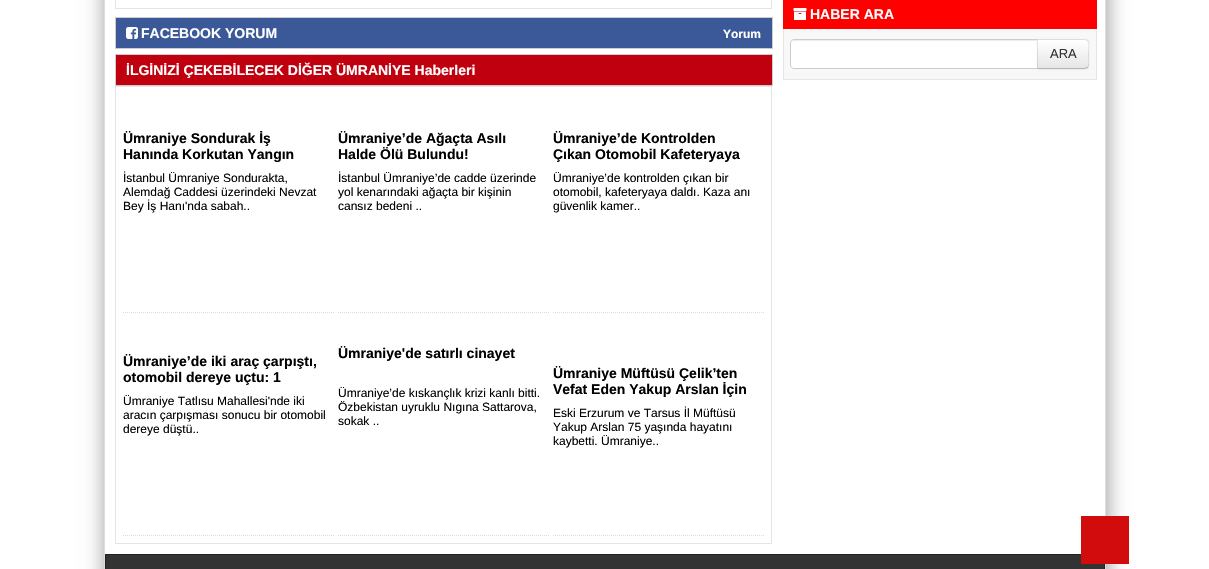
#include "include/core/SkBlurTypes.h"
#include "include/core/SkCanvas.h"
#include "include/core/SkData.h"
#include "include/core/SkFont.h"
#include "include/core/SkFontMgr.h"
#include "include/core/SkImage.h"
#include "include/core/SkMaskFilter.h"
#include "include/core/SkPaint.h"
#include "include/core/SkPathBuilder.h"
#include "include/core/SkTextBlob.h"
#include "include/effects/SkDashPathEffect.h"
#include "include/effects/SkGradientShader.h"
#include "include/utils/SkParsePath.h"

extern sk_sp<SkFontMgr> fontMgr;

static SkFont font(const char* family, int weight, float size, bool italic = false) {
    SkFontStyle style(weight, SkFontStyle::kNormal_Width,
        italic ? SkFontStyle::kItalic_Slant : SkFontStyle::kUpright_Slant);
    SkFont result(fontMgr->matchFamilyStyle(family, style), size);
    result.setSubpixel(true);
    return result;
}

static void drawLabel(SkCanvas* canvas, const char* s, float x, float y, const SkFont& font, SkColor color) {
    SkPaint ink(SkColor4f::FromColor(color));
    ink.setAntiAlias(true);
    canvas->drawString(s, x, y, font, ink);
}

static void fillRect(SkCanvas* canvas, float x, float y, float w, float h, SkColor color) {
    SkPaint ink(SkColor4f::FromColor(color));
    ink.setAntiAlias(true);
    canvas->drawRect(SkRect::MakeXYWH(x, y, w, h), ink);
}

static void drawPhoto(SkCanvas* canvas, const char* path, float x, float y, float w, float h) {
    auto image = SkImages::DeferredFromEncodedData(SkData::MakeFromFileName(path));
    canvas->drawImageRect(image, SkRect::MakeXYWH(x, y, w, h), SkSamplingOptions());
}

static SkPath parsePath(const char* data, bool evenOdd = false) {
    SkPath result = *SkParsePath::FromSVGString(data);
    if (evenOdd) result.setFillType(SkPathFillType::kEvenOdd);
    return result;
}

void draw(SkCanvas* canvas) {
    SkPaint paint;
    paint.setAntiAlias(true);
    canvas->clear(0xFFFFFFFF);
    canvas->save();
    canvas->clipPath(parsePath("M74 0H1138V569H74ZM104-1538H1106V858H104Z", true), true);
    paint.setColor(0xFF999999);
    paint.setMaskFilter(SkMaskFilter::MakeBlur(kNormal_SkBlurStyle, 10));
    canvas->drawRect(SkRect::MakeXYWH(105, -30, 1002, 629), paint);
    paint.setMaskFilter(nullptr);
    canvas->restore();
    fillRect(canvas, 1105, 0, 1, 569, 0xFFDDDDDD);
    fillRect(canvas, 104, 0, 1, 569, 0xFFDDDDDD);
    paint.setStroke(true);
    paint.setStrokeWidth(1);
    paint.setColor(0xFFE5E5E5);
    canvas->drawRect(SkRect::MakeXYWH(115.5f, -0.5f, 656, 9), paint);
    paint.setStroke(false);
    paint.setColor(0xFF3B5998);
    canvas->drawRect(SkRect::MakeXYWH(115.5f, 17.5f, 657, 31), paint);
    paint.setStroke(true);
    paint.setColor(0xFFCCCCCC);
    canvas->drawRect(SkRect::MakeXYWH(115.5f, 17.5f, 657, 31), paint);
    drawPhoto(canvas, "assets/img1.png", 126, 27, 12, 12);
    SkFont font1 = font("Liberation Sans", 700, 14);
    drawLabel(canvas, "FACEBOOK YORUM", 141, 38, font1, 0xFFFFFFFF);
    SkFont font2 = font("Liberation Sans", 700, 12);
    drawLabel(canvas, "Yorum", 723, 38, font2, 0xFFFFFFFF);
    paint.setStroke(false);
    paint.setColor(0xFFC1000F);
    canvas->drawRect(SkRect::MakeXYWH(115.5f, 54.5f, 657, 31), paint);
    paint.setStroke(true);
    paint.setColor(0xFFCCCCCC);
    canvas->drawRect(SkRect::MakeXYWH(115.5f, 54.5f, 657, 31), paint);
    drawLabel(canvas, "İLGİNİZİ ÇEKEBİLECEK DİĞER ÜMRANİYE Haberleri", 126, 75, font1, 0xFFFFFFFF);
    paint.setColor(0xFFE5E5E5);
    canvas->drawRect(SkRect::MakeXYWH(115.5f, 86.5f, 656, 457), paint);
    paint.setColor(0xFFDCDCDC);
    paint.setPathEffect(SkDashPathEffect::Make({{1, 1}}, 0));
    canvas->drawPath(parsePath("M123 312.5H334"), paint);
    paint.setPathEffect(nullptr);
    drawLabel(canvas, "Ümraniye Sondurak İş", 123, 143, font1, 0xFF000000);
    drawLabel(canvas, "Hanında Korkutan Yangın", 123, 159, font1, 0xFF000000);
    SkFont font3 = font("Liberation Sans", 400, 12);
    drawLabel(canvas, "İstanbul Ümraniye Sondurakta,", 123, 182, font3, 0xFF000000);
    drawLabel(canvas, "Alemdağ Caddesi üzerindeki Nevzat", 123, 196, font3, 0xFF000000);
    drawLabel(canvas, "Bey İş Hanı'nda sabah..", 123, 210, font3, 0xFF000000);
    paint.setPathEffect(SkDashPathEffect::Make({{1, 1}}, 0));
    canvas->drawPath(parsePath("M338 312.5H549"), paint);
    paint.setPathEffect(nullptr);
    drawLabel(canvas, "Ümraniye’de Ağaçta Asılı", 338, 143, font1, 0xFF000000);
    drawLabel(canvas, "Halde Ölü Bulundu!", 338, 159, font1, 0xFF000000);
    drawLabel(canvas, "İstanbul Ümraniye’de cadde üzerinde", 338, 182, font3, 0xFF000000);
    drawLabel(canvas, "yol kenarındaki ağaçta bir kişinin", 338, 196, font3, 0xFF000000);
    drawLabel(canvas, "cansız bedeni ..", 338, 210, font3, 0xFF000000);
    paint.setPathEffect(SkDashPathEffect::Make({{1, 1}}, 0));
    canvas->drawPath(parsePath("M553 312.5H764"), paint);
    paint.setPathEffect(nullptr);
    drawLabel(canvas, "Ümraniye’de Kontrolden", 553, 143, font1, 0xFF000000);
    drawLabel(canvas, "Çıkan Otomobil Kafeteryaya", 553, 159, font1, 0xFF000000);
    drawLabel(canvas, "Ümraniye’de kontrolden çıkan bir", 553, 182, font3, 0xFF000000);
    drawLabel(canvas, "otomobil, kafeteryaya daldı. Kaza anı", 553, 196, font3, 0xFF000000);
    drawLabel(canvas, "güvenlik kamer..", 553, 210, font3, 0xFF000000);
    paint.setPathEffect(SkDashPathEffect::Make({{1, 1}}, 0));
    canvas->drawPath(parsePath("M123 535.5H334"), paint);
    paint.setPathEffect(nullptr);
    drawLabel(canvas, "Ümraniye’de iki araç çarpıştı,", 123, 366, font1, 0xFF000000);
    drawLabel(canvas, "otomobil dereye uçtu: 1", 123, 382, font1, 0xFF000000);
    drawLabel(canvas, "Ümraniye Tatlısu Mahallesi'nde iki", 123, 405, font3, 0xFF000000);
    drawLabel(canvas, "aracın çarpışması sonucu bir otomobil", 123, 419, font3, 0xFF000000);
    drawLabel(canvas, "dereye düştü..", 123, 433, font3, 0xFF000000);
    paint.setPathEffect(SkDashPathEffect::Make({{1, 1}}, 0));
    canvas->drawPath(parsePath("M338 535.5H549"), paint);
    paint.setPathEffect(nullptr);
    drawLabel(canvas, "Ümraniye'de satırlı cinayet", 338, 358, font1, 0xFF000000);
    drawLabel(canvas, "Ümraniye’de kıskançlık krizi kanlı bitti.", 338, 397, font3, 0xFF000000);
    drawLabel(canvas, "Özbekistan uyruklu Nıgına Sattarova,", 338, 411, font3, 0xFF000000);
    drawLabel(canvas, "sokak ..", 338, 425, font3, 0xFF000000);
    paint.setPathEffect(SkDashPathEffect::Make({{1, 1}}, 0));
    canvas->drawPath(parsePath("M553 535.5H764"), paint);
    paint.setPathEffect(nullptr);
    drawLabel(canvas, "Ümraniye Müftüsü Çelik’ten", 553, 378, font1, 0xFF000000);
    drawLabel(canvas, "Vefat Eden Yakup Arslan İçin", 553, 394, font1, 0xFF000000);
    drawLabel(canvas, "Eski Erzurum ve Tarsus İl Müftüsü", 553, 417, font3, 0xFF000000);
    drawLabel(canvas, "Yakup Arslan 75 yaşında hayatını", 553, 431, font3, 0xFF000000);
    drawLabel(canvas, "kaybetti. Ümraniye..", 553, 445, font3, 0xFF000000);
    fillRect(canvas, 783, 0, 314, 29, 0xFFFF0000);
    drawPhoto(canvas, "assets/img2.png", 793, 8, 14, 12);
    drawLabel(canvas, "HABER ARA", 810, 19, font1, 0xFFFFFFFF);
    fillRect(canvas, 784, 29, 312, 50, 0xFFF8F8F8);
    fillRect(canvas, 1096, 29, 1, 51, 0xFFE5E5E5);
    fillRect(canvas, 783, 79, 314, 1, 0xFFE5E5E5);
    fillRect(canvas, 783, 29, 1, 51, 0xFFE5E5E5);
    paint.setStroke(false);
    paint.setColor(0xFFFFFFFF);
    canvas->drawPath(parsePath("M794 39H1038V69H794C792 69 790 67 790 65V43C790 41 792 39 794 39Z"), paint);
    paint.setColor(0xFFECECEC);
    canvas->drawPath(parsePath("M794 41H1037V40H794C792 40 791 42 791 44C791 42 792 41 794 41Z"), paint);
    paint.setStroke(true);
    paint.setColor(0xFFCCCCCC);
    canvas->drawPath(parsePath("M794 39.5H1037.5V68.5H794C792 68.5 790.5 67 790.5 65V43C790.5 41 792 39.5 794 39.5Z"), paint);
    paint.setStroke(false);
    paint.setColor(0x0D000000);
    paint.setMaskFilter(SkMaskFilter::MakeBlur(kNormal_SkBlurStyle, 1));
    canvas->drawRoundRect(SkRect::MakeXYWH(1037, 40, 52, 30), 4, 4, paint);
    paint.setMaskFilter(nullptr);
    paint.setColor(0xFFF5F5F5);
    canvas->drawPath(parsePath("M1037 39H1085C1087 39 1089 41 1089 43V65C1089 67 1087 69 1085 69H1037Z"), paint);
    canvas->save();
    canvas->clipPath(parsePath("M1037 39H1085C1087 39 1089 41 1089 43V65C1089 67 1087 69 1085 69H1037Z"), true);
    {
        const SkColor colors[] = {0xFFFFFFFF, 0xFFE6E6E6};
        const float stops[] = {0, 1};
        const SkPoint ends[] = {{1063, 40}, {1063, 68}};
        paint.setShader(SkGradientShader::MakeLinear(ends, colors, stops, 2, SkTileMode::kClamp));
        paint.setAlpha(255);
    }
    canvas->drawRect(SkRect::MakeXYWH(1037, 40, 52, 28), paint);
    canvas->restore();
    paint.setShader(nullptr);
    paint.setColor(0x1A000000);
    canvas->drawPath(parsePath("M1037 39L1038 40H1077C1083 40 1086 40 1087 41L1088 40C1086 39 1083 39 1077 39Z"), paint);
    canvas->drawPath(parsePath("M1089 66L1088 68L1087 67C1089.5 65.5 1088 56.5 1088 54C1088 51.5 1089.5 42.5 1087 41L1088 40C1089.5 41.5 1089 44 1089 46Z"), paint);
    paint.setColor(0xFFB3B3B3);
    canvas->drawPath(parsePath("M1077 69C1083 69 1086 69 1088 68L1087 67C1086 68 1083 68 1077 68H1038L1037 69Z"), paint);
    paint.setColor(0x1A000000);
    canvas->drawPath(parsePath("M1037 39V69L1038 68V40Z"), paint);
    SkFont font4 = font("Liberation Sans", 400, 13);
    drawLabel(canvas, "ARA", 1050, 58, font4, 0xFF333333);
    paint.setColor(0xFF333333);
    canvas->drawRect(SkRect::MakeXYWH(105.5f, 554.5f, 999, 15), paint);
    paint.setStroke(true);
    paint.setColor(0xFF222222);
    canvas->drawRect(SkRect::MakeXYWH(105.5f, 554.5f, 999, 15), paint);
    fillRect(canvas, 1081, 516, 48, 48, 0xFFD20C0C);
}
